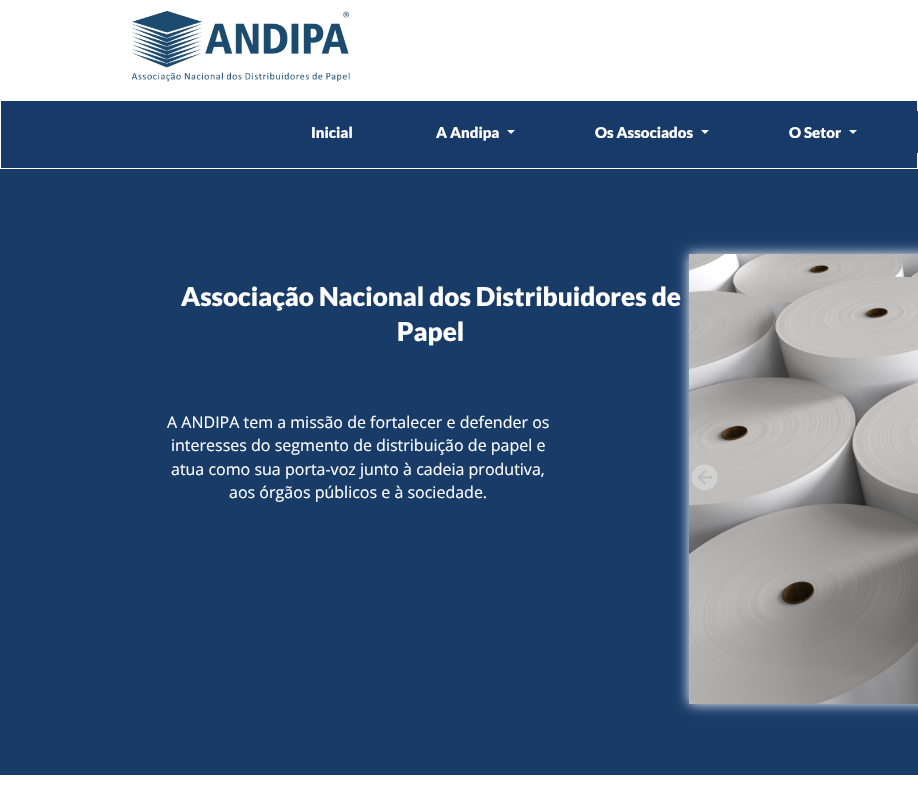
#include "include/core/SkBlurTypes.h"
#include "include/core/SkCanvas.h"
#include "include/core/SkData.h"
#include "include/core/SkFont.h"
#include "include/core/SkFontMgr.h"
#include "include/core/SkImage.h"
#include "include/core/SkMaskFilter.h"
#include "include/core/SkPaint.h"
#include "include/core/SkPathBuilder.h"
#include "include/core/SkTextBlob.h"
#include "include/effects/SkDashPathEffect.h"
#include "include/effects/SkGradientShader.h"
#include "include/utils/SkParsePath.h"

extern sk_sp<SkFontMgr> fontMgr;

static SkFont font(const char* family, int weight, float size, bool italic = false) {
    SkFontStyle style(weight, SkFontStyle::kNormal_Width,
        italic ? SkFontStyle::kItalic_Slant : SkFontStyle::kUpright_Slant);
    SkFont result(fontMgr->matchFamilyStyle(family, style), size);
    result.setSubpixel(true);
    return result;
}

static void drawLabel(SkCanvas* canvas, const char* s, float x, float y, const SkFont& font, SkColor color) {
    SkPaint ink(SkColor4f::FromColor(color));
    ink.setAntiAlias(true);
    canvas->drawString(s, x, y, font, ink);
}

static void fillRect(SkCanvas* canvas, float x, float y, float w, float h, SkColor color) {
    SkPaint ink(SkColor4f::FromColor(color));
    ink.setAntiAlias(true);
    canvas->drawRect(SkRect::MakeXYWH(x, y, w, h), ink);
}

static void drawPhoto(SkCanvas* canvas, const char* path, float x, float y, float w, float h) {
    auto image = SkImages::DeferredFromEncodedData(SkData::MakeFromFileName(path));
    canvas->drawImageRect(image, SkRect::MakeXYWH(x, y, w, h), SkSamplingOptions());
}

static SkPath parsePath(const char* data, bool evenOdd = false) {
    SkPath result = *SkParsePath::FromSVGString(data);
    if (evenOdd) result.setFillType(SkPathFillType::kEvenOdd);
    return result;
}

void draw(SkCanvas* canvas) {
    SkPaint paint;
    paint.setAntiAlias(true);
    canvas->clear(0xFFFFFFFF);
    drawPhoto(canvas, "assets/img1.png", 131, 10, 219, 72);
    fillRect(canvas, 1, 101, 916, 67, 0xFF173A68);
    fillRect(canvas, 917, 111, 1, 42, 0xFF163967);
    SkFont font1 = font("Lato", 900, 15);
    drawLabel(canvas, "Inicial", 311, 138, font1, 0xFFFFFFFF);
    drawLabel(canvas, "A Andipa", 436, 138, font1, 0xFFFFFFFF);
    paint.setColor(0xFFFFFFFF);
    canvas->drawPath(parsePath("M507 130H515L511 134Z"), paint);
    drawLabel(canvas, "Os Associados", 595, 138, font1, 0xFFFFFFFF);
    canvas->drawPath(parsePath("M701 130H709L705 134Z"), paint);
    drawLabel(canvas, "O Setor", 789, 138, font1, 0xFFFFFFFF);
    canvas->drawPath(parsePath("M849 130H857L853 134Z"), paint);
    fillRect(canvas, 0, 169, 918, 606, 0xFF183B68);
    SkFont font2 = font("Lato", 900, 26);
    drawLabel(canvas, "Associação Nacional dos Distribuidores de", 181, 306, font2, 0xFFFFFFFF);
    drawLabel(canvas, "Papel", 397, 341, font2, 0xFFFFFFFF);
    paint.setMaskFilter(SkMaskFilter::MakeBlur(kNormal_SkBlurStyle, 6));
    canvas->drawRect(SkRect::MakeXYWH(689, 254, 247, 450), paint);
    paint.setMaskFilter(nullptr);
    drawPhoto(canvas, "assets/img2.png", 689, 254, 229, 450);
    drawPhoto(canvas, "assets/img3.png", 691, 464, 27, 27);
    SkFont font3 = font("Open Sans", 400, 16);
    drawLabel(canvas, "A ANDIPA tem a missão de fortalecer e defender os", 167, 428, font3, 0xFFFFFFFF);
    drawLabel(canvas, "interesses do segmento de distribuição de papel e", 171, 451, font3, 0xFFFFFFFF);
    drawLabel(canvas, "atua como sua porta-voz junto à cadeia produtiva,", 171, 475, font3, 0xFFFFFFFF);
    drawLabel(canvas, "aos órgãos públicos e à sociedade.", 229, 498, font3, 0xFFFFFFFF);
}
